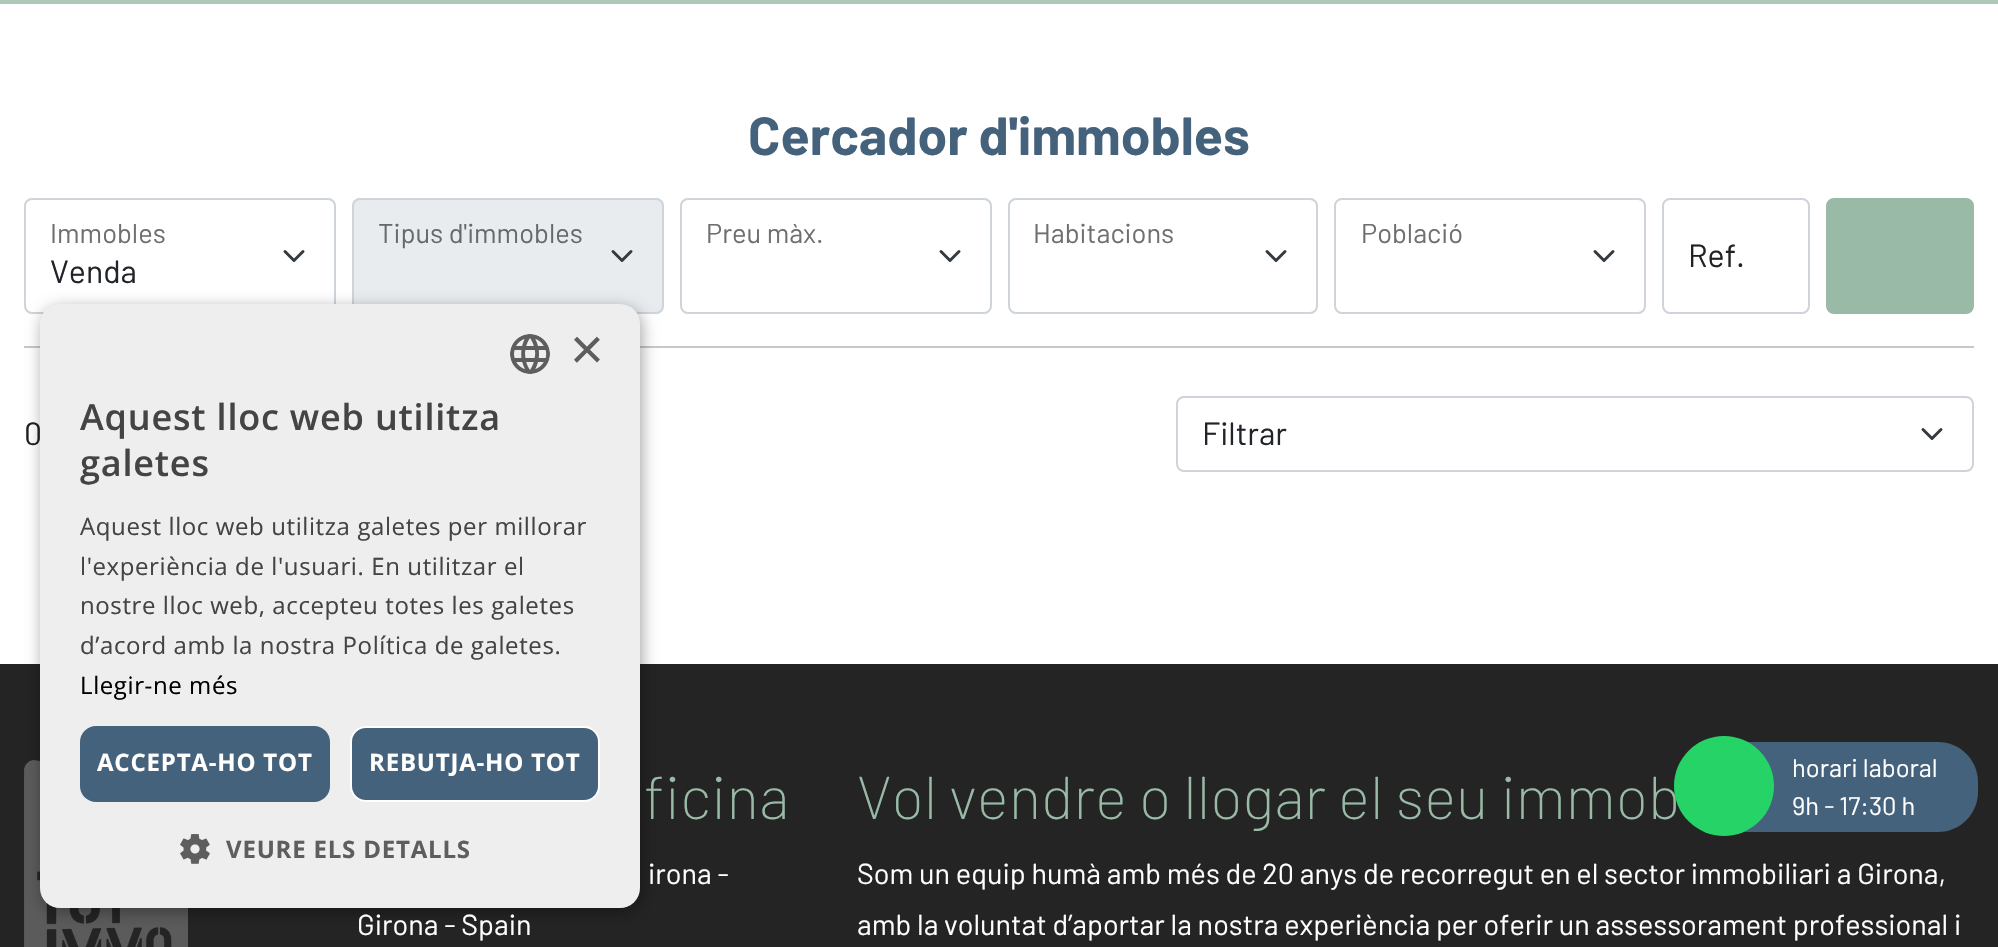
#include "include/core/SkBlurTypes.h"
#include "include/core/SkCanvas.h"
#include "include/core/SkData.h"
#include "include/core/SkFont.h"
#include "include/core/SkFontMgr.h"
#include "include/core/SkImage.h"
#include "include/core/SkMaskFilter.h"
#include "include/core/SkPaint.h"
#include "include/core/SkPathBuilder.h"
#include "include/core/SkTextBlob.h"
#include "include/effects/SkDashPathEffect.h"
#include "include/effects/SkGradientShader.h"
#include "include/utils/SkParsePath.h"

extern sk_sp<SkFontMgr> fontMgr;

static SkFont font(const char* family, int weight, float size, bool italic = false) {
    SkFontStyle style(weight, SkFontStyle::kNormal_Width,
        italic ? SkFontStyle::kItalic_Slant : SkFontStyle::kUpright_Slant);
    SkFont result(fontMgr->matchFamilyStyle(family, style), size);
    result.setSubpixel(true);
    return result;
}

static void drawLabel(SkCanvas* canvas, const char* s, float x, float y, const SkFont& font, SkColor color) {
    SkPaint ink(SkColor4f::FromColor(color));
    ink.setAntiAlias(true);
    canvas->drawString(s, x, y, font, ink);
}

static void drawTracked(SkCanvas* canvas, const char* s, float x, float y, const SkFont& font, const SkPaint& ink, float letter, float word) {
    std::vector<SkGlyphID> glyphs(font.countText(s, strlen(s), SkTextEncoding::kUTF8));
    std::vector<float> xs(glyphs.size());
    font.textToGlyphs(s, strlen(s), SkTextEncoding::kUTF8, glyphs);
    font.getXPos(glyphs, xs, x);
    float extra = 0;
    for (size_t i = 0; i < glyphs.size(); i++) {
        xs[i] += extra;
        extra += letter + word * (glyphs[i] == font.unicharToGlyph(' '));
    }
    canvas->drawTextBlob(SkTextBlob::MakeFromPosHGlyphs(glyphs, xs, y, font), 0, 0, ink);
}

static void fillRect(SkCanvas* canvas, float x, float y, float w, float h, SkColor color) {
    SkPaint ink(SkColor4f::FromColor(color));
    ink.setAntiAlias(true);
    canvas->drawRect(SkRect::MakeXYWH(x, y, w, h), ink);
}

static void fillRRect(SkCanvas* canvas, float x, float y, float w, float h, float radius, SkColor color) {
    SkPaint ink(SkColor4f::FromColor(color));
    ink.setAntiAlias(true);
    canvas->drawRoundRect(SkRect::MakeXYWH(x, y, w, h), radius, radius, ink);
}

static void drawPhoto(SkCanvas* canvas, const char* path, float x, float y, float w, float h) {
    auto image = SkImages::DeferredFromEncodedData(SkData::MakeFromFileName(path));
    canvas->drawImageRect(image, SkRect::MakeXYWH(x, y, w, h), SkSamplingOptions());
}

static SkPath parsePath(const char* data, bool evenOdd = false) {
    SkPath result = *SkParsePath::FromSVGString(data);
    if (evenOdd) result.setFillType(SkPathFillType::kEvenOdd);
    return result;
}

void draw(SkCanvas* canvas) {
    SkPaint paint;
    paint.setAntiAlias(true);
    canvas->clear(0xFFFFFFFF);
    fillRect(canvas, 0, 0, 1998, 4, 0xFFADC8B8);
    SkFont font1 = font("Barlow", 700, 53.5f);
    drawLabel(canvas, "Cercador d'immobles", 748, 155, font1, 0xFF44627B);
    paint.setStroke(true);
    paint.setStrokeWidth(3);
    paint.setStrokeCap(SkPaint::kRound_Cap);
    paint.setStrokeJoin(SkPaint::kRound_Join);
    paint.setColor(0xFF343A40);
    canvas->drawPath(parsePath("M285 251.5L294 260.5L303 251.5"), paint);
    paint.setStrokeWidth(2);
    paint.setStrokeCap(SkPaint::kButt_Cap);
    paint.setStrokeJoin(SkPaint::kMiter_Join);
    paint.setColor(0xFFCED4DA);
    canvas->drawRoundRect(SkRect::MakeXYWH(25, 199, 310, 114), 7, 7, paint);
    SkFont font2 = font("Barlow", 400, 27.25f);
    drawLabel(canvas, "Immobles", 50, 243, font2, 0xFF6F6F6F);
    SkFont font3 = font("Barlow", 400, 32);
    drawLabel(canvas, "Venda", 50, 283, font3, 0xFF212529);
    fillRRect(canvas, 352, 198, 312, 116, 8, 0xFFE9ECEF);
    paint.setStrokeWidth(3);
    paint.setStrokeCap(SkPaint::kRound_Cap);
    paint.setStrokeJoin(SkPaint::kRound_Join);
    paint.setColor(0xFF343A40);
    canvas->drawPath(parsePath("M613 251.5L622 260.5L631 251.5"), paint);
    paint.setStrokeWidth(2);
    paint.setStrokeCap(SkPaint::kButt_Cap);
    paint.setStrokeJoin(SkPaint::kMiter_Join);
    paint.setColor(0xFFCED4DA);
    canvas->drawRoundRect(SkRect::MakeXYWH(353, 199, 310, 114), 7, 7, paint);
    drawLabel(canvas, "Tipus d'immobles", 378, 243, font2, 0xFF68696A);
    paint.setStrokeWidth(3);
    paint.setStrokeCap(SkPaint::kRound_Cap);
    paint.setStrokeJoin(SkPaint::kRound_Join);
    paint.setColor(0xFF343A40);
    canvas->drawPath(parsePath("M941 251.5L950 260.5L959 251.5"), paint);
    paint.setStrokeWidth(2);
    paint.setStrokeCap(SkPaint::kButt_Cap);
    paint.setStrokeJoin(SkPaint::kMiter_Join);
    paint.setColor(0xFFCED4DA);
    canvas->drawRoundRect(SkRect::MakeXYWH(681, 199, 310, 114), 7, 7, paint);
    drawLabel(canvas, "Preu màx.", 706, 243, font2, 0xFF6F6F6F);
    paint.setStrokeWidth(3);
    paint.setStrokeCap(SkPaint::kRound_Cap);
    paint.setStrokeJoin(SkPaint::kRound_Join);
    paint.setColor(0xFF343A40);
    canvas->drawPath(parsePath("M1267 251.5L1276 260.5L1285 251.5"), paint);
    paint.setStrokeWidth(2);
    paint.setStrokeCap(SkPaint::kButt_Cap);
    paint.setStrokeJoin(SkPaint::kMiter_Join);
    paint.setColor(0xFFCED4DA);
    canvas->drawRoundRect(SkRect::MakeXYWH(1009, 199, 308, 114), 7, 7, paint);
    drawLabel(canvas, "Habitacions", 1033, 243, font2, 0xFF6F6F6F);
    paint.setStrokeWidth(3);
    paint.setStrokeCap(SkPaint::kRound_Cap);
    paint.setStrokeJoin(SkPaint::kRound_Join);
    paint.setColor(0xFF343A40);
    canvas->drawPath(parsePath("M1595 251.5L1604 260.5L1613 251.5"), paint);
    paint.setStrokeWidth(2);
    paint.setStrokeCap(SkPaint::kButt_Cap);
    paint.setStrokeJoin(SkPaint::kMiter_Join);
    paint.setColor(0xFFCED4DA);
    canvas->drawRoundRect(SkRect::MakeXYWH(1335, 199, 310, 114), 7, 7, paint);
    drawLabel(canvas, "Població", 1361, 243, font2, 0xFF6F6F6F);
    paint.setStroke(false);
    paint.setColor(0xFF98BAA6);
    canvas->drawRoundRect(SkRect::MakeXYWH(1827, 199, 146, 114), 7, 7, paint);
    paint.setStroke(true);
    canvas->drawRoundRect(SkRect::MakeXYWH(1827, 199, 146, 114), 7, 7, paint);
    paint.setColor(0xFFCED4DA);
    canvas->drawRoundRect(SkRect::MakeXYWH(1663, 199, 146, 114), 7, 7, paint);
    drawLabel(canvas, "Ref.", 1688, 267, font3, 0xFF222222);
    fillRect(canvas, 24, 346, 1950, 2, 0xFFC8C8C8);
    drawLabel(canvas, "0", 24, 445, font3, 0xFF222222);
    paint.setStrokeWidth(3);
    paint.setStrokeCap(SkPaint::kRound_Cap);
    paint.setStrokeJoin(SkPaint::kRound_Join);
    paint.setColor(0xFF343A40);
    canvas->drawPath(parsePath("M1923 429.5L1932 438.5L1941 429.5"), paint);
    paint.setStrokeWidth(2);
    paint.setStrokeCap(SkPaint::kButt_Cap);
    paint.setStrokeJoin(SkPaint::kMiter_Join);
    paint.setColor(0xFFCED4DA);
    canvas->drawRoundRect(SkRect::MakeXYWH(1177, 397, 796, 74), 7, 7, paint);
    drawLabel(canvas, "Filtrar", 1202, 445, font3, 0xFF212529);
    fillRect(canvas, 0, 664, 1998, 283, 0xFF242424);
    drawPhoto(canvas, "assets/img3.png", 24, 760, 164, 187);
    paint.setStroke(false);
    paint.setColor(0x59000000);
    paint.setMaskFilter(SkMaskFilter::MakeBlur(kNormal_SkBlurStyle, 8));
    canvas->drawRoundRect(SkRect::MakeXYWH(42, 308, 600, 604), 20, 20, paint);
    paint.setMaskFilter(nullptr);
    fillRRect(canvas, 40, 304, 600, 604, 20, 0xFFEEEEEE);
    drawPhoto(canvas, "assets/img1.png", 510, 334, 40, 40);
    SkFont font4 = font("Liberation Sans", 400, 58);
    drawLabel(canvas, "×", 570, 369, font4, 0xFF5E5E5E);
    SkFont font5 = font("Open Sans", 600, 36);
    paint.setColor(0xFF444444);
    drawTracked(canvas, "Aquest lloc web utilitza", 80, 430, font5, paint, 0.8f, 0);
    drawTracked(canvas, "galetes", 80, 476, font5, paint, 0.8f, 0);
    SkFont font6 = font("Open Sans", 400, 24);
    drawTracked(canvas, "Aquest lloc web utilitza galetes per millorar", 80, 535, font6, paint, 0.6f, 0);
    drawTracked(canvas, "l'experiència de l'usuari. En utilitzar el", 80, 575, font6, paint, 0.6f, 0);
    drawTracked(canvas, "nostre lloc web, accepteu totes les galetes", 80, 614, font6, paint, 0.6f, 0);
    drawTracked(canvas, "d’acord amb la nostra Política de galetes.", 80, 654, font6, paint, 0.6f, 0);
    paint.setColor(0xFF000000);
    drawTracked(canvas, "Llegir-ne més", 80, 694, font6, paint, 0.6f, 0);
    fillRRect(canvas, 80, 726, 250, 76, 16, 0xFF44627B);
    SkFont font7 = font("Open Sans", 700, 24);
    paint.setColor(0xFFFFFFFF);
    drawTracked(canvas, "ACCEPTA-HO TOT", 97, 771, font7, paint, 0.8f, 0);
    paint.setColor(0xFF44627B);
    canvas->drawRoundRect(SkRect::MakeXYWH(351, 727, 248, 74), 15, 15, paint);
    paint.setStroke(true);
    paint.setColor(0xFFFFFFFF);
    canvas->drawRoundRect(SkRect::MakeXYWH(351, 727, 248, 74), 15, 15, paint);
    paint.setStroke(false);
    drawTracked(canvas, "REBUTJA-HO TOT", 369, 771, font7, paint, 0.8f, 0);
    drawPhoto(canvas, "assets/img2.png", 180, 834, 30, 30);
    paint.setColor(0xFF5E5E5E);
    drawTracked(canvas, "VEURE ELS DETALLS", 226, 858, font7, paint, 0.8f, 0);
    paint.setColor(0xFF44627B);
    canvas->drawPath(parsePath("M1738 742H1938C1960 742 1978 760 1978 782V792C1978 814 1960 832 1938 832H1738Z"), paint);
    SkFont font8 = font("Barlow", 200, 60.4f);
    drawLabel(canvas, "Vol vendre o llogar el seu immob", 857, 819, font8, 0xFF98BAA6);
    paint.setColor(0xFF25D366);
    canvas->drawCircle(1724, 786, 50, paint);
    SkFont font9 = font("Barlow", 400, 25.5f);
    drawLabel(canvas, "horari laboral", 1792, 777, font9, 0xFFFFFFFF);
    drawLabel(canvas, "9h - 17:30 h", 1792, 815, font9, 0xFFFFFFFF);
    drawLabel(canvas, "ficina", 644, 819, font8, 0xFF98BAA6);
    SkFont font10 = font("Barlow", 400, 28.8f);
    drawLabel(canvas, "irona -", 648, 884, font10, 0xFFFFFFFF);
    drawLabel(canvas, "Girona - Spain", 357, 935, font10, 0xFFFFFFFF);
    drawLabel(canvas, "Som un equip humà amb més de 20 anys de recorregut en el sector immobiliari a Girona,", 857, 884, font10, 0xFFFFFFFF);
    drawLabel(canvas, "amb la voluntat d’aportar la nostra experiència per oferir un assessorament professional i", 857, 935, font10, 0xFFFFFFFF);
}
